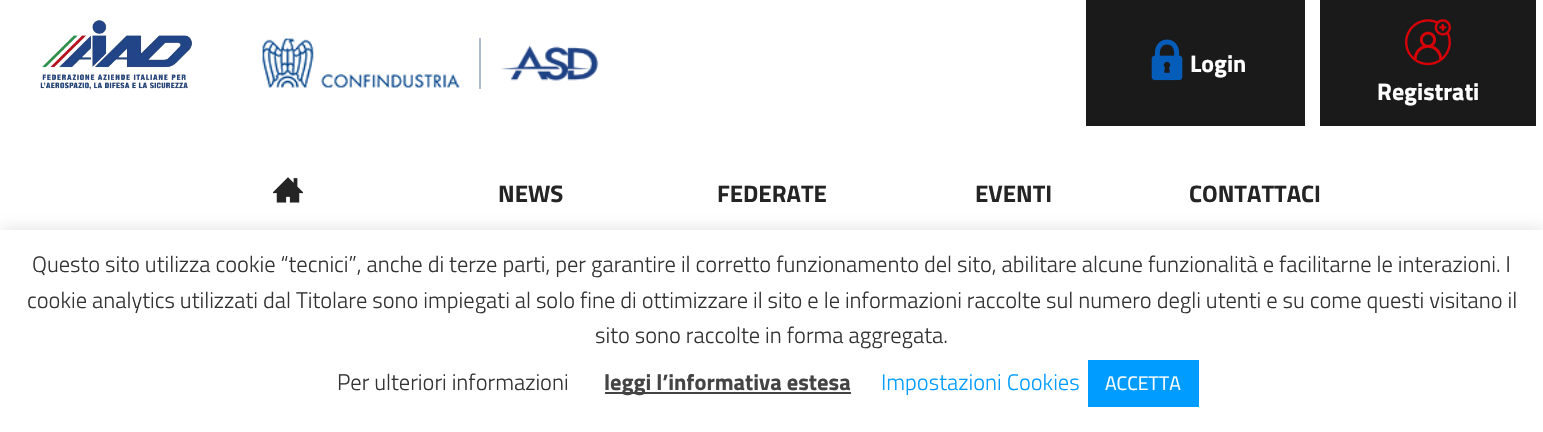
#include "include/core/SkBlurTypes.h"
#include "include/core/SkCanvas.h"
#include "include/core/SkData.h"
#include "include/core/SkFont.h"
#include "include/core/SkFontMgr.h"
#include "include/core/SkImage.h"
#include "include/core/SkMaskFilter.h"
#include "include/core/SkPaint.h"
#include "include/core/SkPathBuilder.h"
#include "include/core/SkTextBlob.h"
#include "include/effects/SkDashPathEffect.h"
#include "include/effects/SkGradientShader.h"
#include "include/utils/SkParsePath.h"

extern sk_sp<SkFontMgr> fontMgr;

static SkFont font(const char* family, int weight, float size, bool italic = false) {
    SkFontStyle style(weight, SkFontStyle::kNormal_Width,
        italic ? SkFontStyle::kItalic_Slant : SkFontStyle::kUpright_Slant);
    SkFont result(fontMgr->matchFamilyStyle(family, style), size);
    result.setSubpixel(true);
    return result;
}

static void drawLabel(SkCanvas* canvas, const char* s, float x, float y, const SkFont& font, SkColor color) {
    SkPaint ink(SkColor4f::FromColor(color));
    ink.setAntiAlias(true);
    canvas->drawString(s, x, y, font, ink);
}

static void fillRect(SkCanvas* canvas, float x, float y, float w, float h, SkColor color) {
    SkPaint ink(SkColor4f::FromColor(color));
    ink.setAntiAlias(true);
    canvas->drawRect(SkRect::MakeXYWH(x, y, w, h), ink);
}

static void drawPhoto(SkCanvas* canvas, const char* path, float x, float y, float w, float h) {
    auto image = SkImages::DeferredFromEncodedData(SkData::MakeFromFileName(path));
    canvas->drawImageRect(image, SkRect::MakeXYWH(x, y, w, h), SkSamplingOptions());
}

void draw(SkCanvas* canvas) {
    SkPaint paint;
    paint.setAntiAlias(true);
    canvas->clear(0xFFFFFFFF);
    drawPhoto(canvas, "assets/img1.png", 40, 20, 152, 70);
    drawPhoto(canvas, "assets/img2.png", 262, 38, 198, 50);
    fillRect(canvas, 479, 38, 2, 51, 0xFFAEBCCD);
    drawPhoto(canvas, "assets/img3.png", 501, 45, 98, 36);
    fillRect(canvas, 1086, 0, 219, 126, 0xFF1A1A1A);
    drawPhoto(canvas, "assets/img4.png", 1151, 39, 32, 42);
    SkFont font1 = font("Titillium Web", 700, 24);
    drawLabel(canvas, "Login", 1190, 72, font1, 0xFFFFFFFF);
    fillRect(canvas, 1320, 0, 216, 126, 0xFF1A1A1A);
    drawPhoto(canvas, "assets/img5.png", 1405, 19, 46, 47);
    drawLabel(canvas, "Registrati", 1377, 100, font1, 0xFFFFFFFF);
    drawPhoto(canvas, "assets/img6.png", 273, 177, 30, 26);
    drawLabel(canvas, "NEWS", 498, 202, font1, 0xFF242424);
    drawLabel(canvas, "FEDERATE", 717, 202, font1, 0xFF242424);
    drawLabel(canvas, "EVENTI", 975, 202, font1, 0xFF242424);
    drawLabel(canvas, "CONTATTACI", 1189, 202, font1, 0xFF242424);
    paint.setColor(0x4DACABAB);
    paint.setMaskFilter(SkMaskFilter::MakeBlur(kNormal_SkBlurStyle, 7.5f));
    canvas->drawRect(SkRect::MakeXYWH(0, 228, 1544, 203), paint);
    paint.setMaskFilter(nullptr);
    fillRect(canvas, 0, 230, 1543, 202, 0xFFFFFFFF);
    SkFont font2 = font("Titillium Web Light", 300, 22.5f);
    drawLabel(canvas, "Questo sito utilizza cookie “tecnici”, anche di terze parti, per garantire il corretto funzionamento del sito, abilitare alcune funzionalità e facilitarne le interazioni. I", 32, 272, font2, 0xFF333333);
    drawLabel(canvas, "cookie analytics utilizzati dal Titolare sono impiegati al solo fine di ottimizzare il sito e le informazioni raccolte sul numero degli utenti e su come questi visitano il", 27, 308, font2, 0xFF333333);
    drawLabel(canvas, "sito sono raccolte in forma aggregata.", 595, 343, font2, 0xFF333333);
    drawLabel(canvas, "Per ulteriori informazioni", 337, 390, font2, 0xFF333333);
    fillRect(canvas, 605, 392, 246, 2, 0xFF444444);
    SkFont font3 = font("Titillium Web", 700, 22.5f);
    drawLabel(canvas, "leggi l’informativa estesa", 604, 390, font3, 0xFF444444);
    drawLabel(canvas, "Impostazioni Cookies", 881, 390, font2, 0xFF009CFF);
    fillRect(canvas, 1088, 360, 111, 47, 0xFF009CFF);
    SkFont font4 = font("Titillium Web", 400, 19.5f);
    drawLabel(canvas, "ACCETTA", 1105, 390, font4, 0xFFFFFFFF);
}
